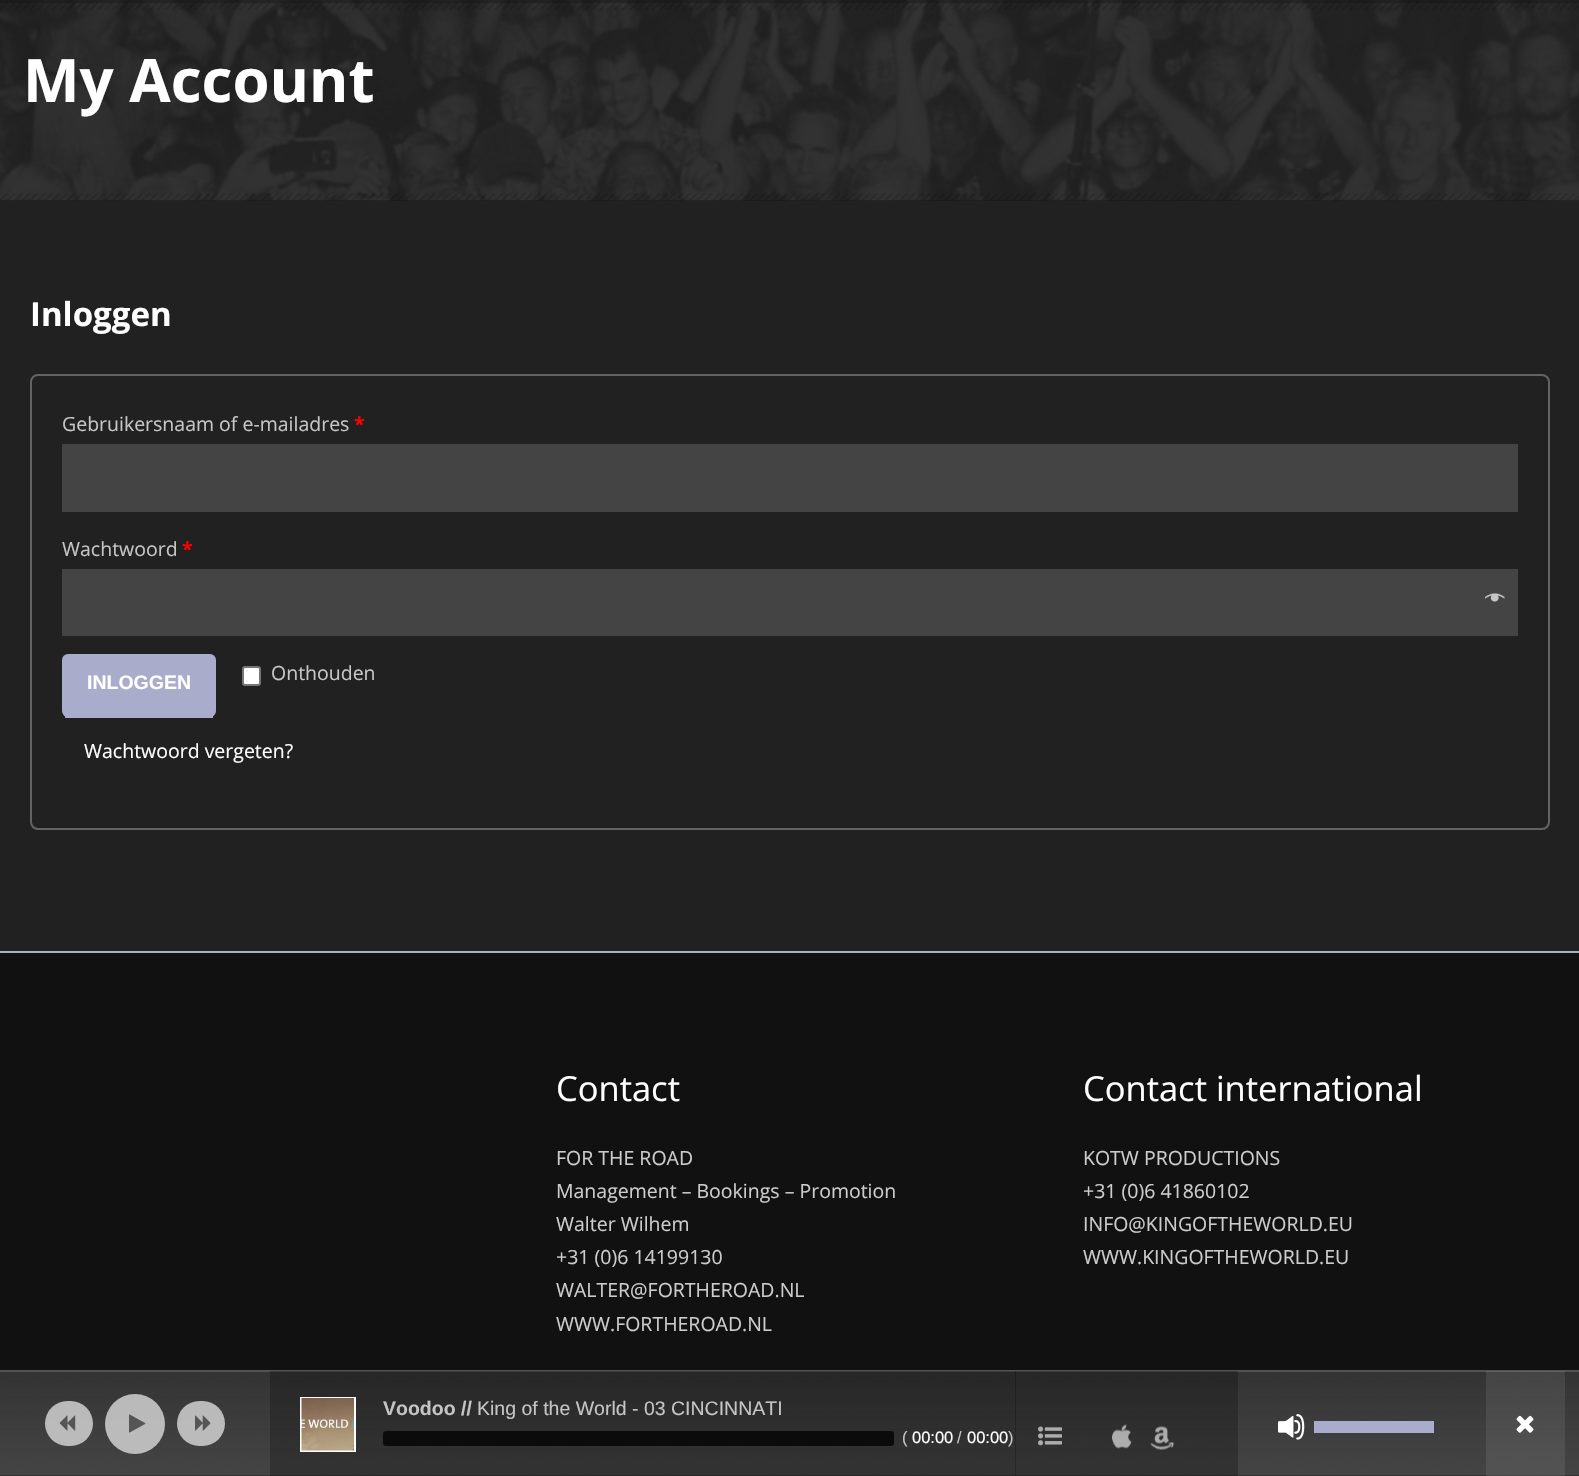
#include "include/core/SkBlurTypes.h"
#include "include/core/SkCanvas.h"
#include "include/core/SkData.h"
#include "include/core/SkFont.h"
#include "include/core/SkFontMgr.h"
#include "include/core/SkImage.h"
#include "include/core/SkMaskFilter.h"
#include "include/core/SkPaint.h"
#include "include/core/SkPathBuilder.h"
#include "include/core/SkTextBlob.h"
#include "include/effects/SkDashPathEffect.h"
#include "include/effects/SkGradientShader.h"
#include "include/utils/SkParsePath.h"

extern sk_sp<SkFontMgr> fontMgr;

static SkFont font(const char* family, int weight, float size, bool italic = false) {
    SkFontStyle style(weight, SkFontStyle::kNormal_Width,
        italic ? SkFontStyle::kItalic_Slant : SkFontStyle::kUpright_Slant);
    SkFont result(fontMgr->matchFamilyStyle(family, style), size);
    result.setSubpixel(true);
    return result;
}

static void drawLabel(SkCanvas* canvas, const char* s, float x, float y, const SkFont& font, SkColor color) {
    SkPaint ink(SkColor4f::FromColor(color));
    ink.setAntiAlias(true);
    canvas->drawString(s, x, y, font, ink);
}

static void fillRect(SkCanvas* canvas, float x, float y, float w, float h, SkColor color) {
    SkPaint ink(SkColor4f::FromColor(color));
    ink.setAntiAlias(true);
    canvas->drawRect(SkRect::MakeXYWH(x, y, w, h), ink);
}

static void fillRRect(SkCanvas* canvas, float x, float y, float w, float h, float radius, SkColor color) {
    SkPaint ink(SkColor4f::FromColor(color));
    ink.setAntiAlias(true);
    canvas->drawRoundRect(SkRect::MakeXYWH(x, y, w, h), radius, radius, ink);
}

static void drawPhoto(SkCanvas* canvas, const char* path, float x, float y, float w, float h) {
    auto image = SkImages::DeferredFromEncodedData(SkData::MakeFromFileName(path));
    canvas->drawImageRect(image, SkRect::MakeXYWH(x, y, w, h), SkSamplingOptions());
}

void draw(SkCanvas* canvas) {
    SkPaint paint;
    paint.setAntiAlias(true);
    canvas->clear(0xFF212121);
    fillRect(canvas, 0, 200, 1579, 1, 0xFF141414);
    drawPhoto(canvas, "assets/img2.png", 0, 0, 1579, 201);
    drawPhoto(canvas, "assets/img1.png", 0, 2, 1579, 8);
    fillRect(canvas, 0, 0, 1579, 3, 0x66111111);
    SkFont font1 = font("Open Sans", 700, 60);
    drawLabel(canvas, "My Account", 23, 102, font1, 0xFFFFFFFF);
    drawPhoto(canvas, "assets/img3.png", 0, 193, 1579, 7);
    SkFont font2 = font("Open Sans", 700, 33);
    drawLabel(canvas, "Inloggen", 30, 326, font2, 0xFFFFFFFF);
    paint.setStroke(true);
    paint.setStrokeWidth(2);
    paint.setColor(0xFF636363);
    canvas->drawRoundRect(SkRect::MakeXYWH(31, 375, 1518, 454), 7, 7, paint);
    SkFont font3 = font("Open Sans", 400, 19.5f);
    drawLabel(canvas, "Gebruikersnaam of e-mailadres", 62, 431, font3, 0xFFC5C5C5);
    SkFont font4 = font("Open Sans", 700, 19.5f);
    drawLabel(canvas, "*", 354, 431, font4, 0xFFFF0000);
    fillRect(canvas, 62, 444, 1456, 68, 0xFF444444);
    drawLabel(canvas, "Wachtwoord", 62, 556, font3, 0xFFC5C5C5);
    drawLabel(canvas, "*", 182, 556, font4, 0xFFFF0000);
    fillRect(canvas, 62, 569, 1456, 67, 0xFF444444);
    drawPhoto(canvas, "assets/img4.png", 1485, 593, 20, 9);
    paint.setStroke(false);
    paint.setColor(0xFFFFFFFF);
    canvas->drawRoundRect(SkRect::MakeXYWH(243, 667, 17, 18), 2, 2, paint);
    paint.setStroke(true);
    paint.setColor(0xFF767676);
    canvas->drawRoundRect(SkRect::MakeXYWH(243, 667, 17, 18), 2, 2, paint);
    drawLabel(canvas, "Onthouden", 271, 680, font3, 0xFFC5C5C5);
    fillRRect(canvas, 62, 654, 154, 63, 6, 0xFFA9ACCB);
    fillRect(canvas, 65, 716, 148, 2, 0xFFA9ACCB);
    SkFont font5 = font("Liberation Sans", 700, 19.5f);
    drawLabel(canvas, "INLOGGEN", 87, 689, font5, 0xFFFFFFFF);
    drawLabel(canvas, "Wachtwoord vergeten?", 84, 758, font3, 0xFFFFFFFF);
    fillRect(canvas, 0, 953, 1579, 523, 0xFF111111);
    fillRect(canvas, 0, 951, 1579, 2, 0xFFA9ACCB);
    SkFont font6 = font("Open Sans", 400, 34.5f);
    drawLabel(canvas, "Contact", 556, 1101, font6, 0xFFFFFFFF);
    drawLabel(canvas, "FOR THE ROAD", 556, 1165, font3, 0xFFCCCCCC);
    drawLabel(canvas, "Management – Bookings – Promotion", 556, 1198, font3, 0xFFCCCCCC);
    drawLabel(canvas, "Walter Wilhem", 556, 1231, font3, 0xFFCCCCCC);
    drawLabel(canvas, "+31 (0)6 14199130", 556, 1264, font3, 0xFFCCCCCC);
    drawLabel(canvas, "WALTER@FORTHEROAD.NL", 556, 1297, font3, 0xFFCCCCCC);
    drawLabel(canvas, "WWW.FORTHEROAD.NL", 556, 1331, font3, 0xFFCCCCCC);
    drawLabel(canvas, "Contact international", 1083, 1101, font6, 0xFFFFFFFF);
    drawLabel(canvas, "KOTW PRODUCTIONS", 1083, 1165, font3, 0xFFCCCCCC);
    drawLabel(canvas, "+31 (0)6 41860102", 1083, 1198, font3, 0xFFCCCCCC);
    drawLabel(canvas, "INFO@KINGOFTHEWORLD.EU", 1083, 1231, font3, 0xFFCCCCCC);
    drawLabel(canvas, "WWW.KINGOFTHEWORLD.EU", 1083, 1264, font3, 0xFFCCCCCC);
    drawPhoto(canvas, "assets/img5.png", 0, 1372, 1579, 104);
    fillRect(canvas, 0, 1370, 1579, 2, 0xFF535353);
    fillRRect(canvas, 45, 1401, 48, 45, 22.5f, 0xCCDADADA);
    drawPhoto(canvas, "assets/img6.png", 59, 1415, 17, 16);
    paint.setStroke(false);
    paint.setColor(0xCCDADADA);
    canvas->drawCircle(135, 1424, 30, paint);
    drawPhoto(canvas, "assets/img7.png", 129, 1414, 17, 19);
    fillRRect(canvas, 177, 1401, 48, 45, 22.5f, 0xCCDADADA);
    drawPhoto(canvas, "assets/img8.png", 195, 1415, 16, 16);
    fillRect(canvas, 1015, 1371, 223, 105, 0x40000000);
    fillRect(canvas, 270, 1371, 746, 105, 0x40000000);
    paint.setStroke(true);
    paint.setColor(0xFFFFFFFF);
    canvas->drawRect(SkRect::MakeXYWH(301, 1398, 54, 53), paint);
    drawPhoto(canvas, "assets/img9.png", 301, 1398, 53, 53);
    drawLabel(canvas, "Voodoo //", 383, 1415, font5, 0xFFC5C5C5);
    SkFont font7 = font("Liberation Sans", 400, 19.5f);
    drawLabel(canvas, "King of the World - 03 CINCINNATI", 477, 1415, font7, 0xFFC5C5C5);
    fillRRect(canvas, 383, 1431, 511, 15, 3, 0xFF0B0B0B);
    SkFont font8 = font("Liberation Sans", 400, 16.5f);
    drawLabel(canvas, "(", 902, 1443, font8, 0xFFC5C5C5);
    drawLabel(canvas, "00:00", 912, 1443, font8, 0xFFFFFFFF);
    drawLabel(canvas, "/", 957, 1443, font8, 0xFFC5C5C5);
    drawLabel(canvas, "00:00", 967, 1443, font8, 0xFFFFFFFF);
    drawLabel(canvas, ")", 1008, 1443, font8, 0xFFC5C5C5);
    drawPhoto(canvas, "assets/img10.png", 1038, 1426, 24, 20);
    drawPhoto(canvas, "assets/img11.png", 1112, 1424, 20, 25);
    drawPhoto(canvas, "assets/img12.png", 1150, 1426, 24, 24);
    drawPhoto(canvas, "assets/img13.png", 1278, 1414, 27, 26);
    fillRect(canvas, 1314, 1421, 120, 12, 0xFFA9ACCB);
    fillRect(canvas, 1486, 1371, 79, 105, 0x1AD8D8D8);
    drawPhoto(canvas, "assets/img14.png", 1516, 1415, 18, 18);
}
